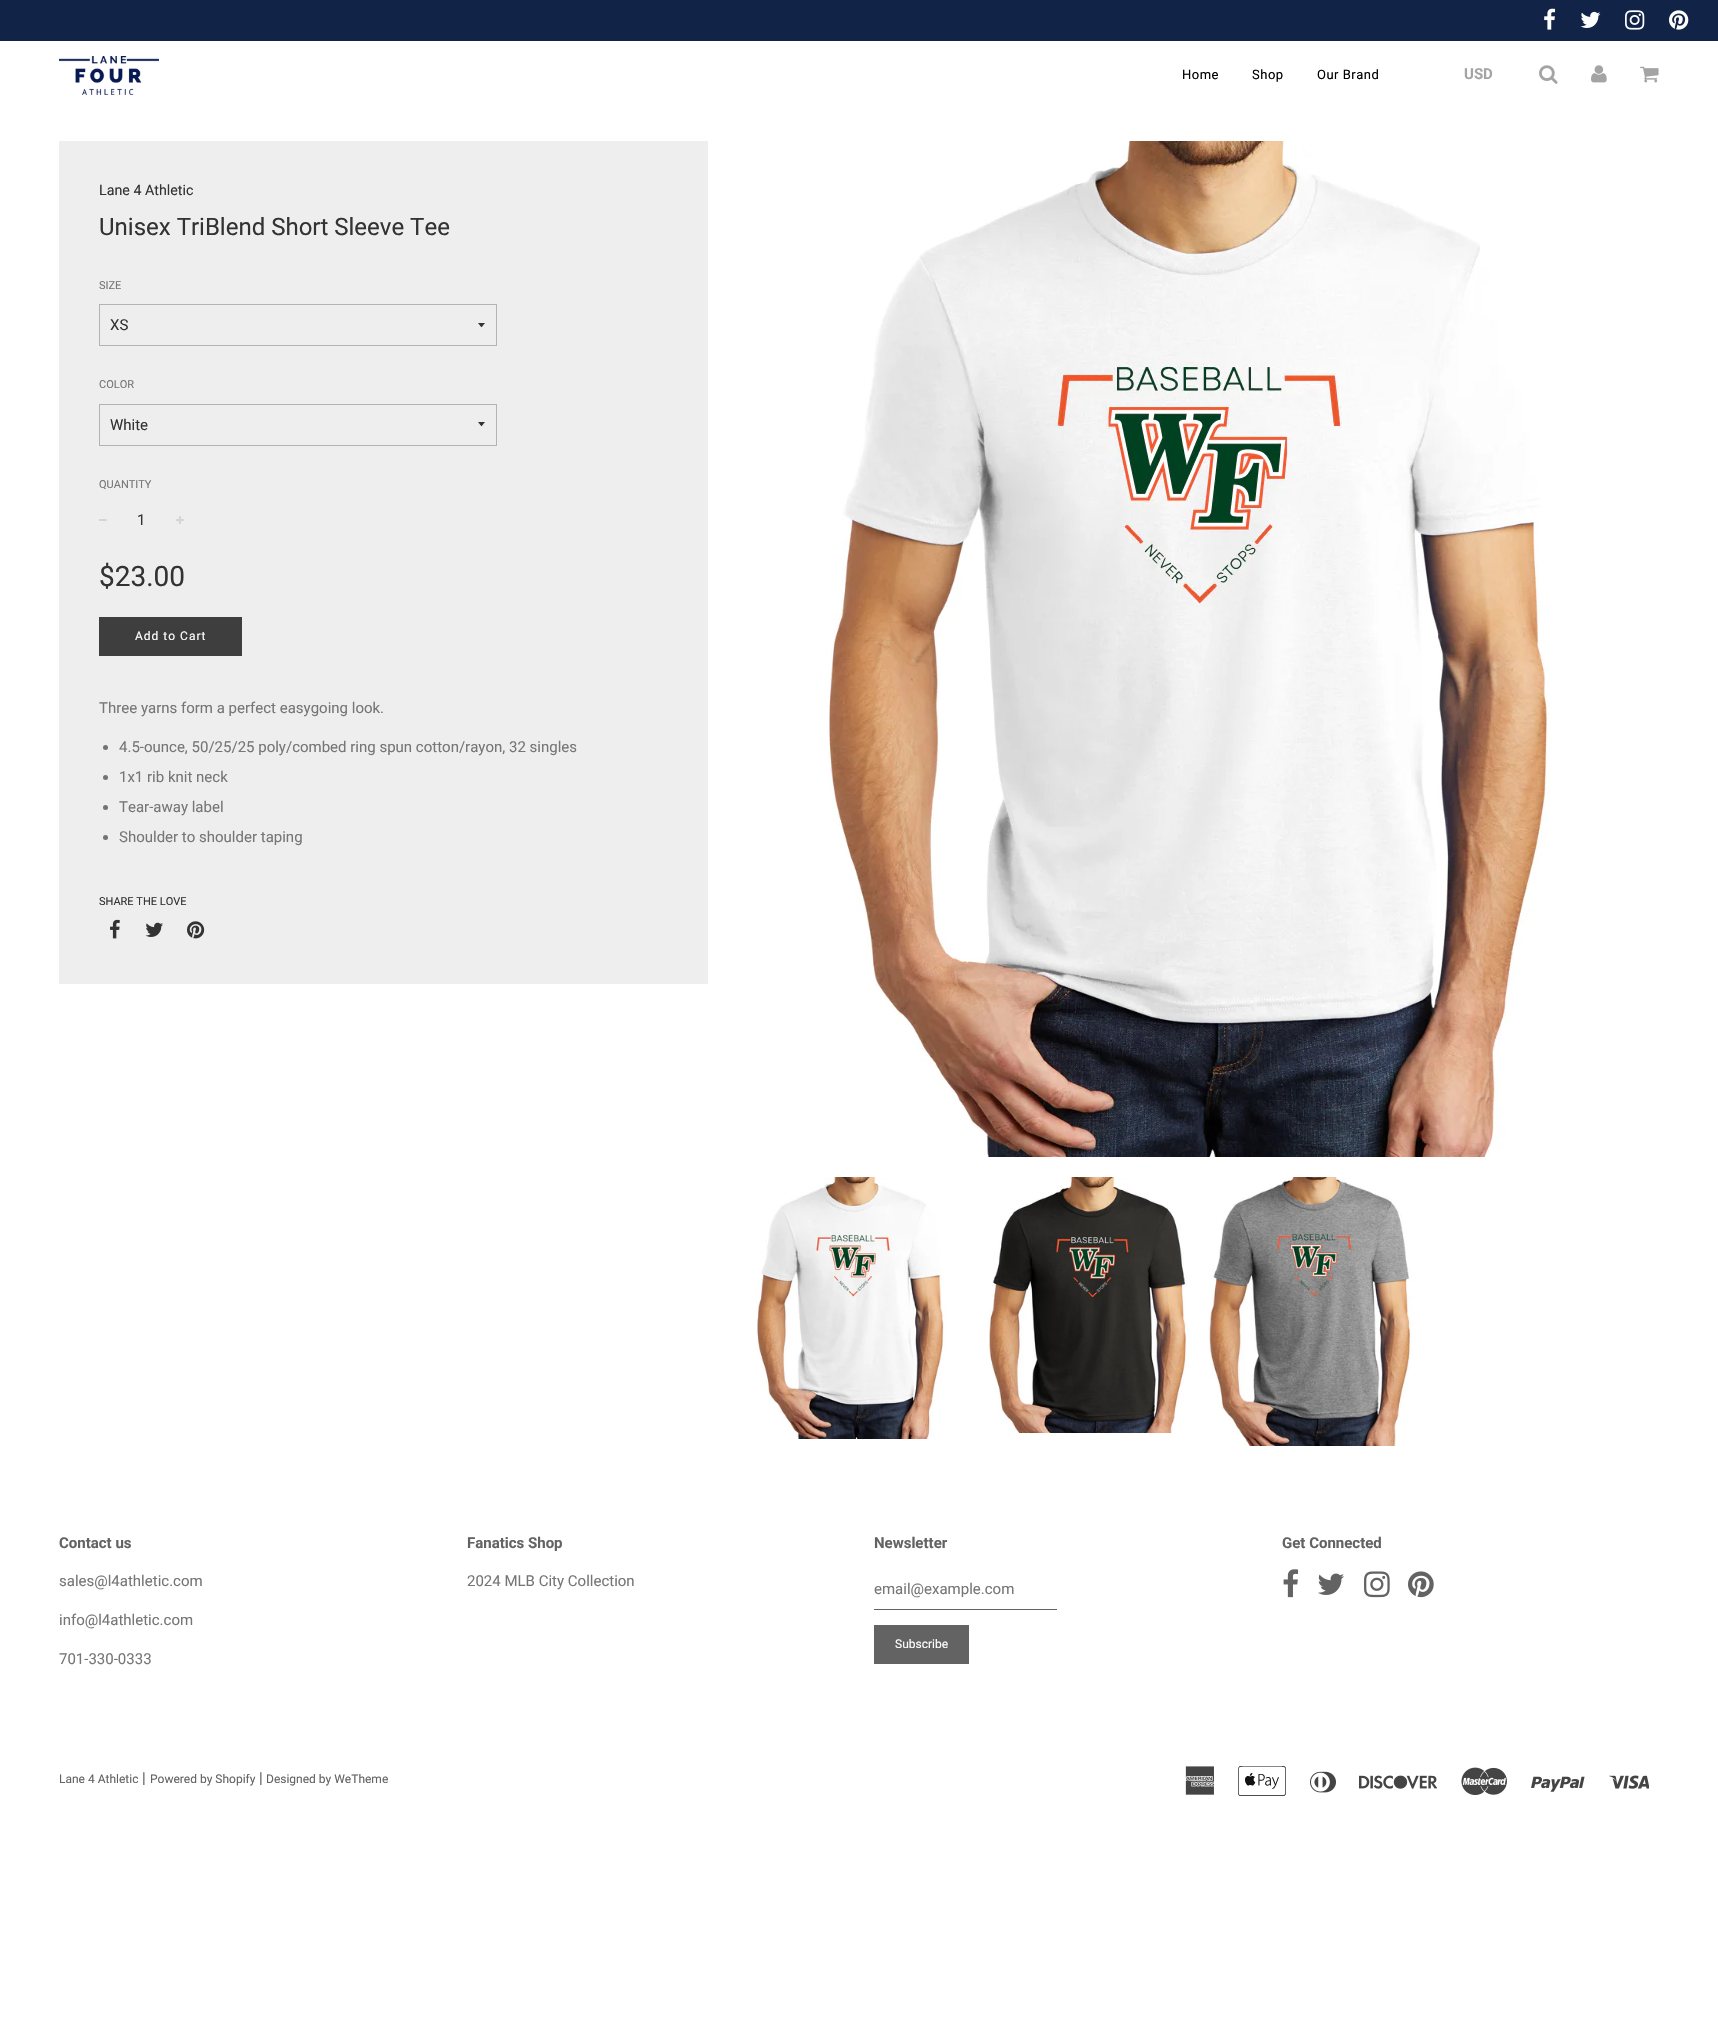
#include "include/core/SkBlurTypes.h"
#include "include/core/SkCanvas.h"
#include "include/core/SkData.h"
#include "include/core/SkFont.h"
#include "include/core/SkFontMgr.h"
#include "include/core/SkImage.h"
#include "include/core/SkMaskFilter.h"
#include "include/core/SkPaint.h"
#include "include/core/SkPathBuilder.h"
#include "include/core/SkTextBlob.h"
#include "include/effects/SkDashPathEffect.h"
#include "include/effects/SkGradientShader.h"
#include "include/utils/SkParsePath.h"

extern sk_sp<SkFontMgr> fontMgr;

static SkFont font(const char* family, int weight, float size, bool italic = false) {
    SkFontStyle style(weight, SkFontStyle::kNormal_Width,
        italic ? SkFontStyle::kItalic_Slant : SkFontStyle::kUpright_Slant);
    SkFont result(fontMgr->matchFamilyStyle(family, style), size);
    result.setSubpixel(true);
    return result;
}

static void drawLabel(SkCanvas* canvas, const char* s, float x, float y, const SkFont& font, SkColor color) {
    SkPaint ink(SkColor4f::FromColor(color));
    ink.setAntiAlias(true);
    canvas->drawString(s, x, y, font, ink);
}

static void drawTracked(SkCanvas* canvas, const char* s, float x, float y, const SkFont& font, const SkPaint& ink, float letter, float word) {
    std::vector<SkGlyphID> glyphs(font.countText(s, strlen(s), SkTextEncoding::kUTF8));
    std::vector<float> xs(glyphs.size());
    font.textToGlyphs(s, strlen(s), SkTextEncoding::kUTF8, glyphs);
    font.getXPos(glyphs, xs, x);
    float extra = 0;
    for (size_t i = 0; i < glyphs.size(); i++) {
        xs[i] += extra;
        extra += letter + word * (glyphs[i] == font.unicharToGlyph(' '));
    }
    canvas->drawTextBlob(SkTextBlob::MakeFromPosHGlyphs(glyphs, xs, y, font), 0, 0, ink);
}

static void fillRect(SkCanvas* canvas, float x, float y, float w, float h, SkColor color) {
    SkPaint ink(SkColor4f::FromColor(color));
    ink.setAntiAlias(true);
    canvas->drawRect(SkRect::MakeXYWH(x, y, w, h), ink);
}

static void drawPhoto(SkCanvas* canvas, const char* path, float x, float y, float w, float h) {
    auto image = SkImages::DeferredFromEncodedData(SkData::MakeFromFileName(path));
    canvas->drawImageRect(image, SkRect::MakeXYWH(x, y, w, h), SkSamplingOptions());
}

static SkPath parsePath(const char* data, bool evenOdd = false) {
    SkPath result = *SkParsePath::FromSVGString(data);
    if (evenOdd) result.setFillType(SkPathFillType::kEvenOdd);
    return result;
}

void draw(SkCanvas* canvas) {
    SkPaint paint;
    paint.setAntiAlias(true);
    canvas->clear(0xFFFFFFFF);
    fillRect(canvas, 0, 0, 1718, 41, 0xFF112447);
    drawPhoto(canvas, "assets/img1.png", 1544, 8, 12, 22);
    drawPhoto(canvas, "assets/img2.png", 1580, 11, 21, 17);
    drawPhoto(canvas, "assets/img3.png", 1625, 10, 20, 20);
    drawPhoto(canvas, "assets/img4.png", 1669, 10, 20, 20);
    drawPhoto(canvas, "assets/img5.png", 59, 56, 100, 39);
    SkFont font1 = font("Roboto", 400, 13);
    paint.setColor(0xFF000000);
    drawTracked(canvas, "Home", 1182, 79, font1, paint, 0.5f, 0);
    drawTracked(canvas, "Shop", 1252, 79, font1, paint, 0.5f, 0);
    drawTracked(canvas, "Our Brand", 1317, 79, font1, paint, 0.5f, 0);
    SkFont font2 = font("Roboto", 700, 15);
    drawLabel(canvas, "USD", 1464, 79, font2, 0xFFA4A4A4);
    drawPhoto(canvas, "assets/img6.png", 1539, 65, 19, 19);
    drawPhoto(canvas, "assets/img7.png", 1591, 65, 16, 18);
    drawPhoto(canvas, "assets/img8.png", 1640, 66, 19, 17);
    fillRect(canvas, 59, 141, 649, 843, 0xFFEEEEEE);
    SkFont font3 = font("Roboto", 400, 14.25f);
    drawLabel(canvas, "Lane 4 Athletic", 99, 195, font3, 0xFF333333);
    SkFont font4 = font("Roboto", 400, 24);
    drawLabel(canvas, "Unisex TriBlend Short Sleeve Tee", 99, 235, font4, 0xFF333333);
    SkFont font5 = font("Roboto", 400, 11);
    drawLabel(canvas, "SIZE", 99, 289, font5, 0xFF767676);
    paint.setColor(0xFF333333);
    canvas->drawPath(parsePath("M478 323C482.5 328.5 480.5 328.5 485 323Z"), paint);
    paint.setStroke(true);
    paint.setStrokeWidth(1);
    paint.setColor(0xFFB3B3B3);
    canvas->drawRect(SkRect::MakeXYWH(99.5f, 304.5f, 397, 41), paint);
    SkFont font6 = font("Roboto", 400, 15);
    drawLabel(canvas, "XS", 110, 330, font6, 0xFF333333);
    drawLabel(canvas, "COLOR", 99, 388, font5, 0xFF767676);
    paint.setStroke(false);
    paint.setColor(0xFF333333);
    canvas->drawPath(parsePath("M478 422C482.5 427.5 480.5 427.5 485 422Z"), paint);
    paint.setStroke(true);
    paint.setColor(0xFFB3B3B3);
    canvas->drawRect(SkRect::MakeXYWH(99.5f, 404.5f, 397, 41), paint);
    drawLabel(canvas, "White", 110, 430, font6, 0xFF333333);
    drawLabel(canvas, "QUANTITY", 99, 488, font5, 0xFF767676);
    drawPhoto(canvas, "assets/img9.png", 99, 519, 8, 2);
    drawLabel(canvas, "1", 137, 525, font6, 0xFF333333);
    drawPhoto(canvas, "assets/img10.png", 176, 516, 8, 8);
    SkFont font7 = font("Roboto", 400, 28);
    drawLabel(canvas, "$23.00", 99, 586, font7, 0xFF333333);
    fillRect(canvas, 99, 617, 143, 39, 0xFF3E3E3E);
    SkFont font8 = font("Roboto", 400, 12);
    paint.setStroke(false);
    paint.setColor(0xFFFFFFFF);
    drawTracked(canvas, "Add to Cart", 135, 640, font8, paint, 1, 0);
    drawLabel(canvas, "Three yarns form a perfect easygoing look.", 99, 713, font6, 0xFF767676);
    paint.setColor(0xFF737373);
    canvas->drawCircle(105.5f, 747.5f, 2.5f, paint);
    drawLabel(canvas, "4.5-ounce, 50/25/25 poly/combed ring spun cotton/rayon, 32 singles", 119, 752, font6, 0xFF767676);
    canvas->drawCircle(105.5f, 777.5f, 2.5f, paint);
    drawLabel(canvas, "1x1 rib knit neck", 119, 782, font6, 0xFF767676);
    canvas->drawCircle(105.5f, 807.5f, 2.5f, paint);
    drawLabel(canvas, "Tear-away label", 119, 812, font6, 0xFF767676);
    canvas->drawCircle(105.5f, 837.5f, 2.5f, paint);
    drawLabel(canvas, "Shoulder to shoulder taping", 119, 842, font6, 0xFF767676);
    drawLabel(canvas, "SHARE THE LOVE", 99, 905, font5, 0xFF333333);
    drawPhoto(canvas, "assets/img11.png", 110, 919, 10, 20);
    drawPhoto(canvas, "assets/img12.png", 145, 922, 18, 15);
    drawPhoto(canvas, "assets/img13.png", 187, 921, 18, 18);
    drawPhoto(canvas, "assets/img14.png", 828, 141, 721, 1016);
    drawPhoto(canvas, "assets/img15.png", 756, 1177, 191, 262);
    drawPhoto(canvas, "assets/img16.png", 988, 1177, 200, 256);
    drawPhoto(canvas, "assets/img17.png", 1207, 1177, 207, 269);
    drawLabel(canvas, "Contact us", 59, 1548, font2, 0xFF636363);
    drawLabel(canvas, "sales@l4athletic.com", 59, 1586, font6, 0xFF767676);
    drawLabel(canvas, "info@l4athletic.com", 59, 1625, font6, 0xFF767676);
    drawLabel(canvas, "701-330-0333", 59, 1664, font6, 0xFF767676);
    drawLabel(canvas, "Fanatics Shop", 467, 1548, font2, 0xFF636363);
    drawLabel(canvas, "2024 MLB City Collection", 467, 1586, font6, 0xFF767676);
    drawLabel(canvas, "Newsletter", 874, 1548, font2, 0xFF636363);
    fillRect(canvas, 874, 1609, 183, 1, 0xFF636363);
    drawLabel(canvas, "email@example.com", 874, 1594, font6, 0xFF767676);
    fillRect(canvas, 874, 1625, 95, 39, 0xFF636363);
    drawLabel(canvas, "Subscribe", 895, 1648, font8, 0xFFFFFFFF);
    drawLabel(canvas, "Get Connected", 1282, 1548, font2, 0xFF636363);
    drawPhoto(canvas, "assets/img18.png", 1283, 1569, 16, 29);
    drawPhoto(canvas, "assets/img19.png", 1318, 1573, 26, 22);
    drawPhoto(canvas, "assets/img20.png", 1364, 1571, 26, 27);
    drawPhoto(canvas, "assets/img21.png", 1408, 1571, 26, 27);
    drawLabel(canvas, "Lane 4 Athletic", 59, 1783, font8, 0xFF636363);
    drawLabel(canvas, "|", 142, 1783, font6, 0xFF636363);
    drawLabel(canvas, "Powered by Shopify", 150, 1783, font8, 0xFF636363);
    drawLabel(canvas, "|", 259, 1783, font6, 0xFF636363);
    drawLabel(canvas, "Designed by WeTheme", 266, 1783, font8, 0xFF636363);
    drawPhoto(canvas, "assets/img22.png", 1185, 1766, 30, 29);
    drawPhoto(canvas, "assets/img23.png", 1238, 1766, 48, 30);
    drawPhoto(canvas, "assets/img24.png", 1310, 1771, 26, 22);
    drawPhoto(canvas, "assets/img25.png", 1359, 1775, 78, 14);
    drawPhoto(canvas, "assets/img26.png", 1461, 1767, 46, 28);
    drawPhoto(canvas, "assets/img27.png", 1531, 1776, 54, 16);
    drawPhoto(canvas, "assets/img28.png", 1609, 1775, 40, 14);
}
